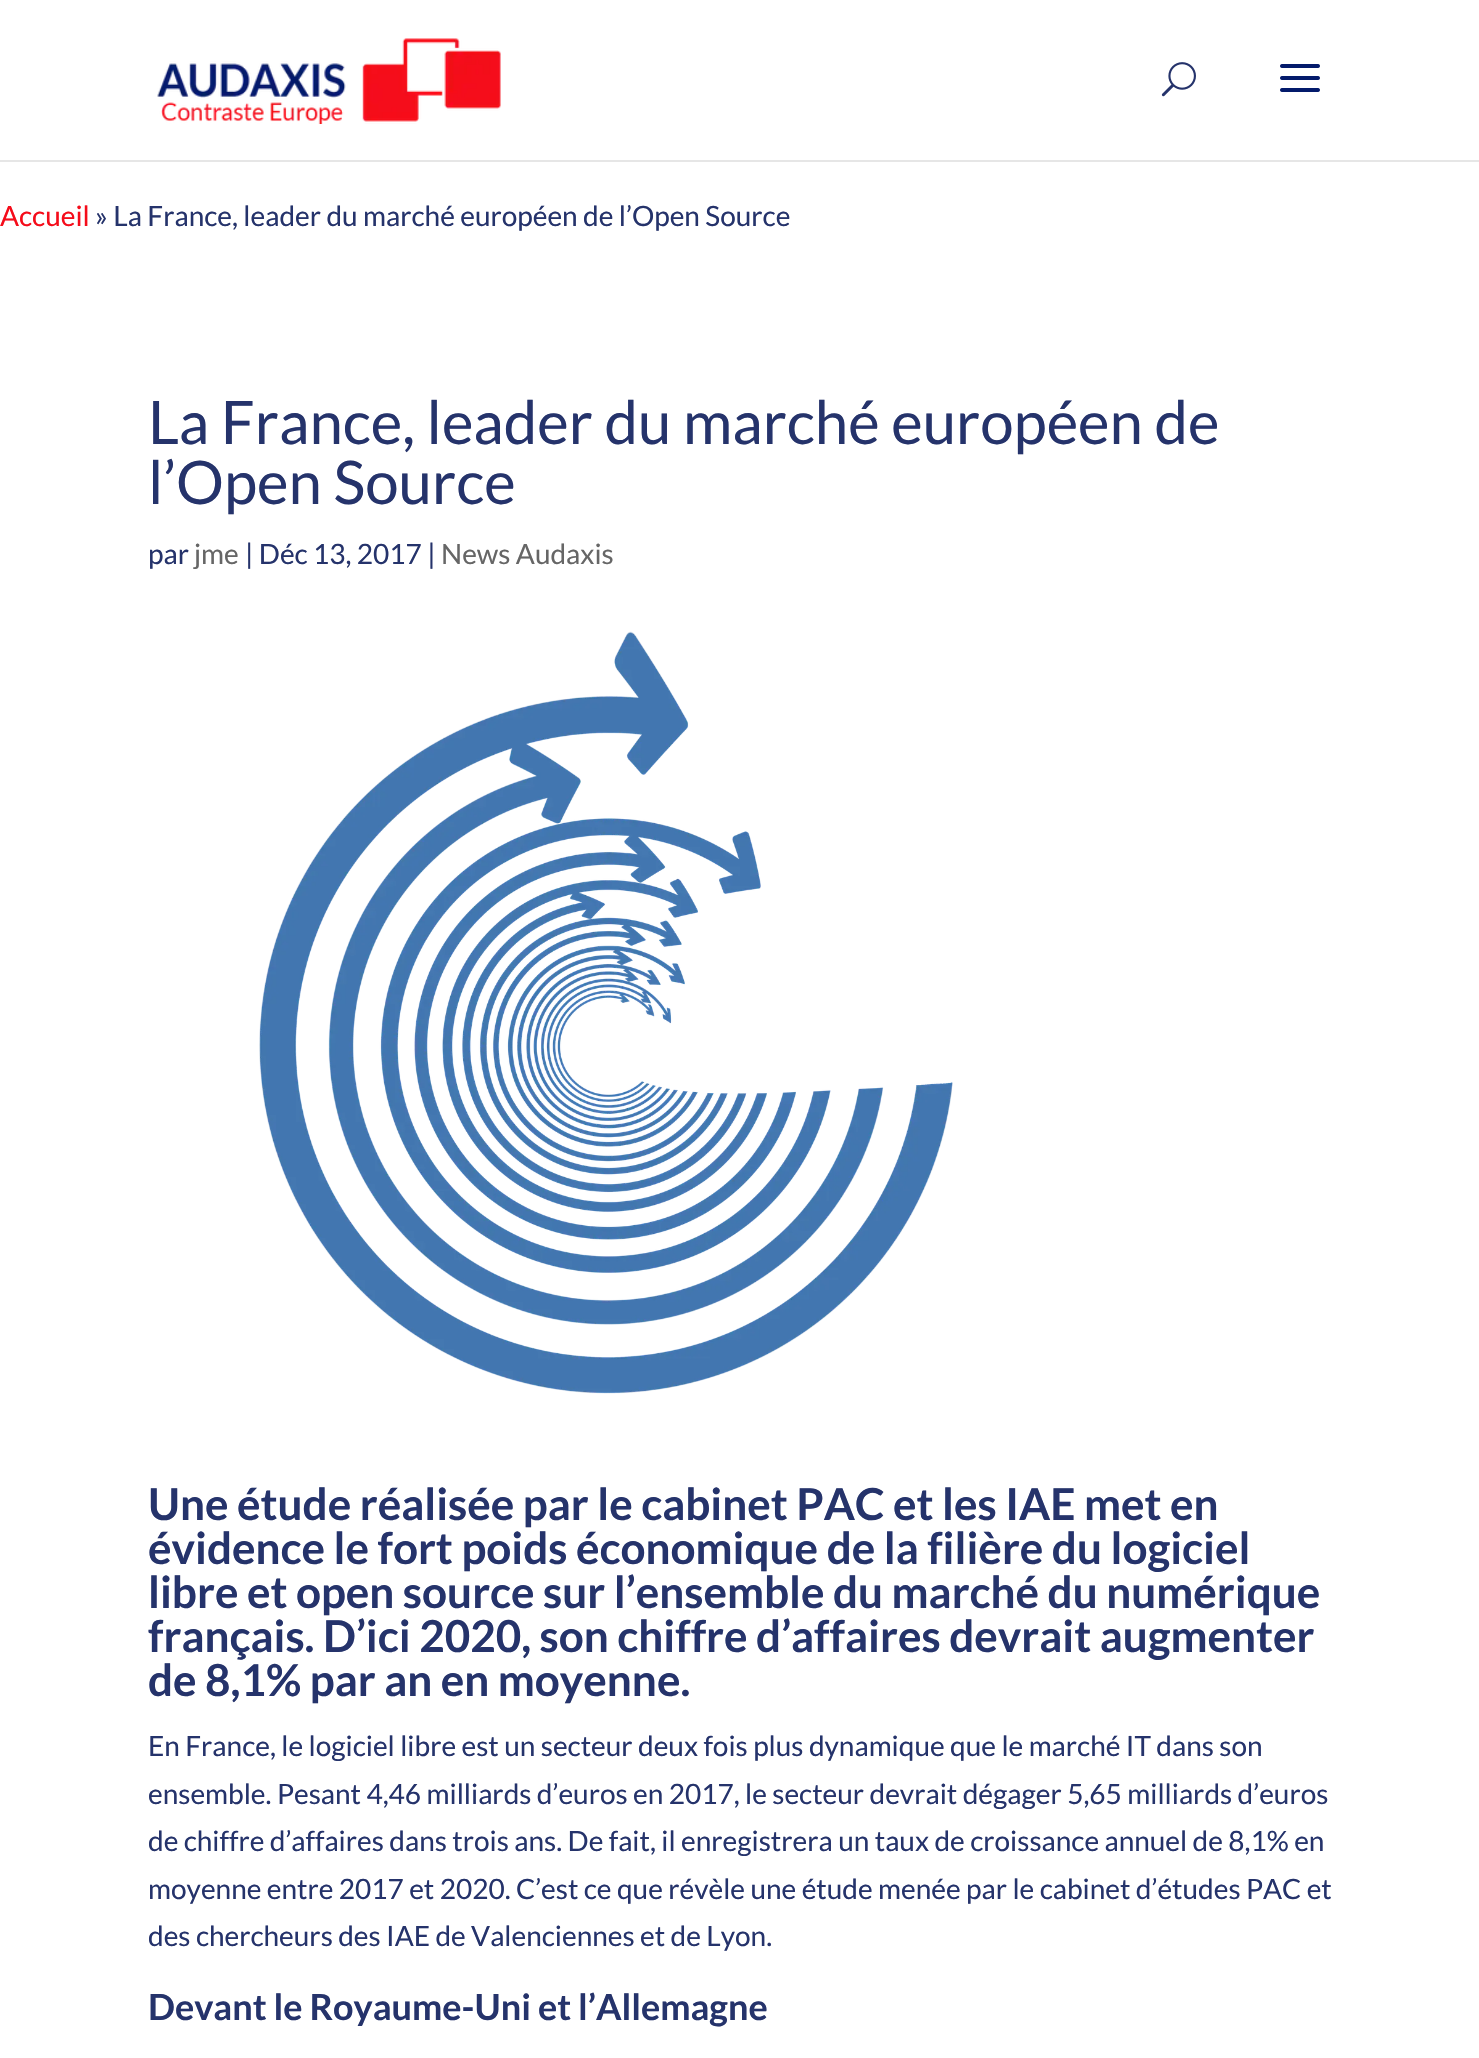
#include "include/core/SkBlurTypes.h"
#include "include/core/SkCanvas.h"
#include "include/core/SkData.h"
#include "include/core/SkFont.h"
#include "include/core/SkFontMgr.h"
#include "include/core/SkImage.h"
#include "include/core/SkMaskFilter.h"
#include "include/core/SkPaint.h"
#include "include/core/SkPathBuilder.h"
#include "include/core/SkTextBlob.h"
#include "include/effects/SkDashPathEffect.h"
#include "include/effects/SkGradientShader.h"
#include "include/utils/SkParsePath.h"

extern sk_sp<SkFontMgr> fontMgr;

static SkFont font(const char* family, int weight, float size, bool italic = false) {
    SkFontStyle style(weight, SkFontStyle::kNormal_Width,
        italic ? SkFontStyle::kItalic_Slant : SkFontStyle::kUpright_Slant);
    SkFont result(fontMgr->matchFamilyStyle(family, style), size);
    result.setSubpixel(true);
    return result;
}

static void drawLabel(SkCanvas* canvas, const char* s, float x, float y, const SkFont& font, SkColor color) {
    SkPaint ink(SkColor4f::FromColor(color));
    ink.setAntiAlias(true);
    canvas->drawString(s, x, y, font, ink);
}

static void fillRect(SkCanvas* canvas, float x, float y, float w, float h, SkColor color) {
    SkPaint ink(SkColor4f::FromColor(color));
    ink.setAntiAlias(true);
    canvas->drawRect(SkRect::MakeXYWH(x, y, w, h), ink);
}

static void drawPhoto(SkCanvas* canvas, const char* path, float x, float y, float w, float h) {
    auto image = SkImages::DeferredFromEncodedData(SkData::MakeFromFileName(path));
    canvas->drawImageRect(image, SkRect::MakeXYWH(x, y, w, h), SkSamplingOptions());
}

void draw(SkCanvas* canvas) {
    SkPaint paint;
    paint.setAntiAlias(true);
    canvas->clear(0xFFFFFFFF);
    fillRect(canvas, 0, 160, 1479, 2, 0xFFE6E6E6);
    drawPhoto(canvas, "assets/img1.png", 157, 38, 344, 86);
    drawPhoto(canvas, "assets/img2.png", 1161, 62, 35, 35);
    drawPhoto(canvas, "assets/img3.png", 1280, 64, 40, 28);
    SkFont font1 = font("Lato", 400, 28);
    drawLabel(canvas, "Accueil", 0, 226, font1, 0xFFF50C1A);
    drawLabel(canvas, "» La France, leader du marché européen de l’Open Source", 95, 226, font1, 0xFF25336B);
    SkFont font2 = font("Lato", 400, 60);
    drawLabel(canvas, "La France, leader du marché européen de", 148, 444, font2, 0xFF25336B);
    drawLabel(canvas, "l’Open Source", 148, 504, font2, 0xFF25336B);
    drawLabel(canvas, "par", 148, 564, font1, 0xFF25336B);
    drawLabel(canvas, "jme", 194, 564, font1, 0xFF666666);
    drawLabel(canvas, "| Déc 13, 2017 |", 245, 564, font1, 0xFF25336B);
    drawLabel(canvas, "News Audaxis", 441, 564, font1, 0xFF666666);
    drawPhoto(canvas, "assets/img4.png", 259, 631, 694, 763);
    SkFont font3 = font("Lato", 700, 44);
    drawLabel(canvas, "Une étude réalisée par le cabinet PAC et les IAE met en", 148, 1520, font3, 0xFF25336B);
    drawLabel(canvas, "évidence le fort poids économique de la filière du logiciel", 148, 1564, font3, 0xFF25336B);
    drawLabel(canvas, "libre et open source sur l’ensemble du marché du numérique", 148, 1608, font3, 0xFF25336B);
    drawLabel(canvas, "français. D’ici 2020, son chiffre d’affaires devrait augmenter", 148, 1652, font3, 0xFF25336B);
    drawLabel(canvas, "de 8,1% par an en moyenne.", 148, 1696, font3, 0xFF25336B);
    drawLabel(canvas, "En France, le logiciel libre est un secteur deux fois plus dynamique que le marché IT dans son", 148, 1756, font1, 0xFF25336B);
    drawLabel(canvas, "ensemble. Pesant 4,46 milliards d’euros en 2017, le secteur devrait dégager 5,65 milliards d’euros", 148, 1804, font1, 0xFF25336B);
    drawLabel(canvas, "de chiffre d’affaires dans trois ans. De fait, il enregistrera un taux de croissance annuel de 8,1% en", 148, 1851, font1, 0xFF25336B);
    drawLabel(canvas, "moyenne entre 2017 et 2020. C’est ce que révèle une étude menée par le cabinet d’études PAC et", 148, 1899, font1, 0xFF25336B);
    drawLabel(canvas, "des chercheurs des IAE de Valenciennes et de Lyon.", 148, 1946, font1, 0xFF25336B);
    SkFont font4 = font("Lato", 700, 36);
    drawLabel(canvas, "Devant le Royaume-Uni et l’Allemagne", 148, 2020, font4, 0xFF25336B);
}
